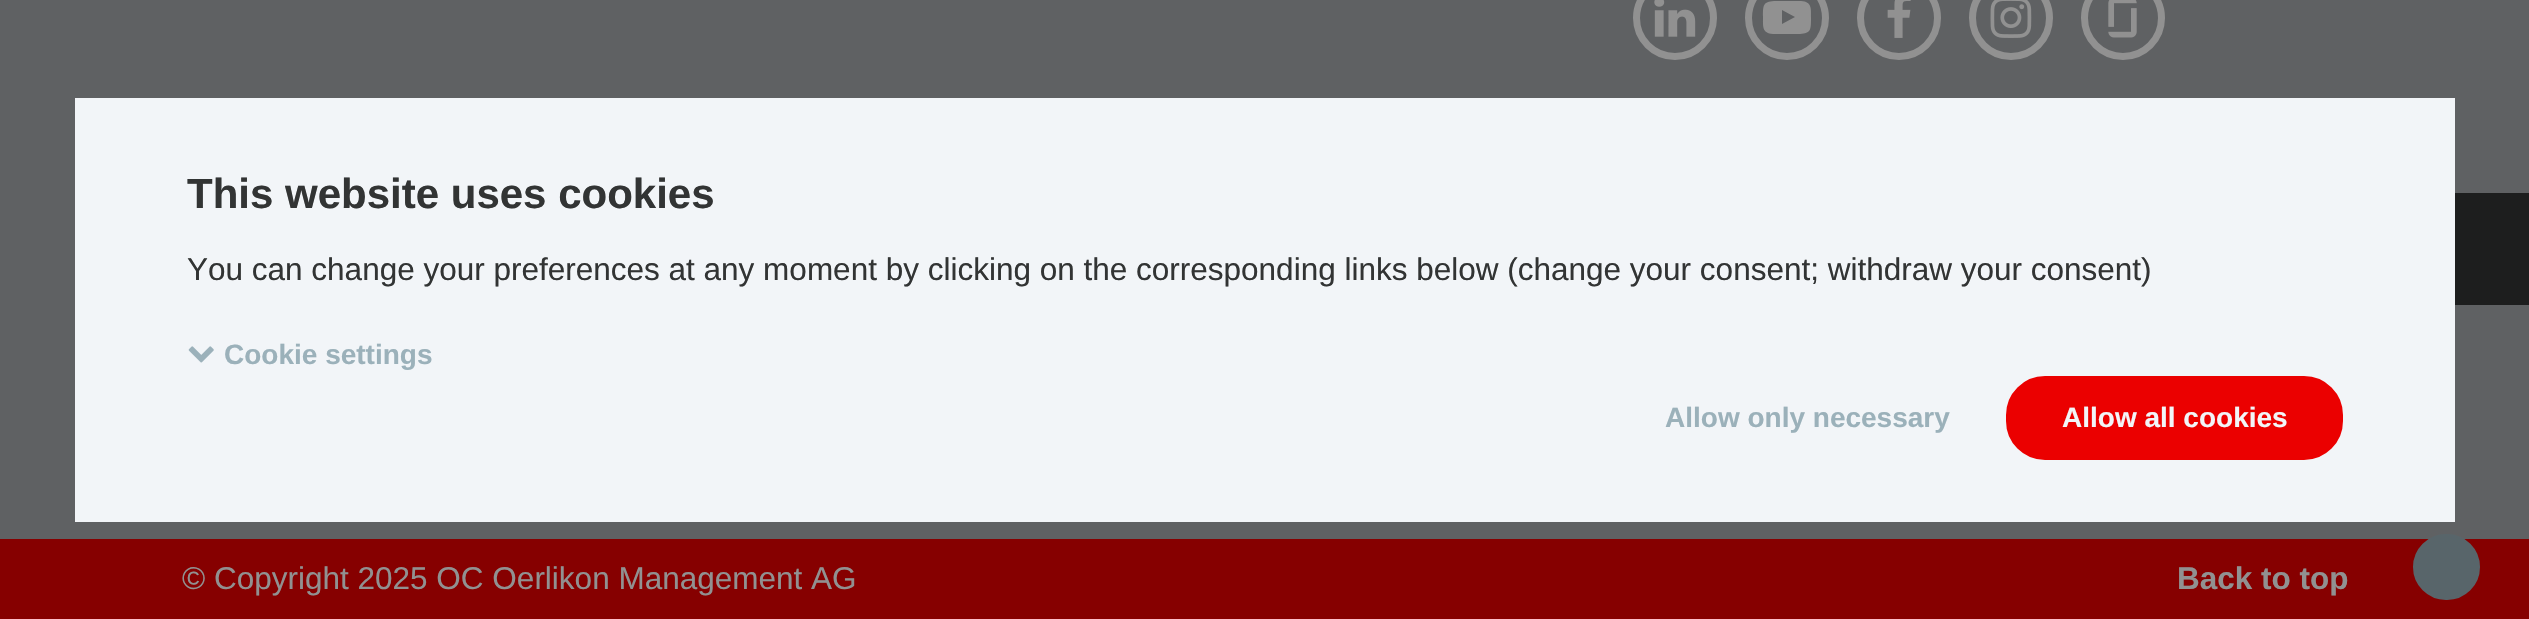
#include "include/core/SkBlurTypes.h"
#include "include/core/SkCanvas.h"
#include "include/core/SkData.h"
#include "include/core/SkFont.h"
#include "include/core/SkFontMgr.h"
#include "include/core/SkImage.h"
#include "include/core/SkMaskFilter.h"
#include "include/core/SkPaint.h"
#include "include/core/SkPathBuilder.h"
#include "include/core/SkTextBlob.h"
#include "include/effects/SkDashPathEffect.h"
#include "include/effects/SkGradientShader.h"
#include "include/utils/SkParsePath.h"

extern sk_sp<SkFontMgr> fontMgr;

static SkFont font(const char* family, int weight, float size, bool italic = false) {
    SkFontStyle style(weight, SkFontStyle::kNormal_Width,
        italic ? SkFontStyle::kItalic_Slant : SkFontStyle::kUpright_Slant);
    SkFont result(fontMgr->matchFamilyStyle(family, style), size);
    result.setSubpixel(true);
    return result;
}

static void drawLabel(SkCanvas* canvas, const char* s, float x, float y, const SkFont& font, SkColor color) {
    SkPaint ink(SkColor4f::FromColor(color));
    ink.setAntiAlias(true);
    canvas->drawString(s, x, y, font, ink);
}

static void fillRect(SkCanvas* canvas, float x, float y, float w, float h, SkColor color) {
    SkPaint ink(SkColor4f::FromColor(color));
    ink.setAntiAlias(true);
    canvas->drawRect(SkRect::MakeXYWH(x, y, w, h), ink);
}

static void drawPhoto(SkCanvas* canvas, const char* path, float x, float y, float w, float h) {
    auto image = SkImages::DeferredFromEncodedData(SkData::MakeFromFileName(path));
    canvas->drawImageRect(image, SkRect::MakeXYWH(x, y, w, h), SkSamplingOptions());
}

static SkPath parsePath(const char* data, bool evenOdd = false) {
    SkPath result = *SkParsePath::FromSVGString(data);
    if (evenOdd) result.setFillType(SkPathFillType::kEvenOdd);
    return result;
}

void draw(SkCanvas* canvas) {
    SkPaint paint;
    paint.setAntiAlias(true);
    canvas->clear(0xFF5F6163);
    fillRect(canvas, 75, 98, 2380, 424, 0xFFF2F5F8);
    SkFont font1 = font("Liberation Sans", 700, 42);
    drawLabel(canvas, "This website uses cookies", 187, 208, font1, 0xFF323434);
    SkFont font2 = font("Liberation Sans", 400, 31.5f);
    drawLabel(canvas, "You can change your preferences at any moment by clicking on the corresponding links below (change your consent; withdraw your consent)", 187, 280, font2, 0xFF323434);
    drawPhoto(canvas, "assets/img1.png", 188, 346, 26, 17);
    SkFont font3 = font("Liberation Sans", 700, 28);
    drawLabel(canvas, "Cookie settings", 224, 364, font3, 0xFF9BB1BA);
    drawLabel(canvas, "Allow only necessary", 1665, 427, font3, 0xFF9BB1BA);
    paint.setColor(0xFFEB0000);
    canvas->drawRoundRect(SkRect::MakeXYWH(2009.5f, 379.5f, 330, 77), 35.5f, 35.5f, paint);
    paint.setStroke(true);
    paint.setStrokeWidth(7);
    canvas->drawRoundRect(SkRect::MakeXYWH(2009.5f, 379.5f, 330, 77), 35.5f, 35.5f, paint);
    drawLabel(canvas, "Allow all cookies", 2062, 427, font3, 0xFFF2F5F8);
    paint.setColor(0xFF919191);
    canvas->drawCircle(1675, 18, 38.5f, paint);
    drawPhoto(canvas, "assets/img2.png", 1654, 0, 42, 37);
    canvas->drawCircle(1787, 18, 38.5f, paint);
    paint.setStroke(false);
    canvas->drawPath(parsePath("M1782 24L1795 17L1782 10ZM1787 1H1801C1812 2 1811 8 1811 18C1811 30 1811 33 1800 34H1773C1762 33 1763 27 1763 17C1763 5 1763 2 1774 1Z"), paint);
    paint.setStroke(true);
    canvas->drawCircle(1899, 18, 38.5f, paint);
    drawPhoto(canvas, "assets/img3.png", 1887, 0, 24, 38);
    canvas->drawCircle(2011, 18, 38.5f, paint);
    drawPhoto(canvas, "assets/img4.png", 1990, 0, 42, 38);
    canvas->drawCircle(2123, 18, 38.5f, paint);
    drawPhoto(canvas, "assets/img5.png", 2108, 0, 29, 38);
    fillRect(canvas, 2455, 193, 74, 112, 0xFF1D1E1E);
    fillRect(canvas, 0, 539, 2529, 80, 0xFF860000);
    drawLabel(canvas, "© Copyright 2025 OC Oerlikon Management AG", 182, 589, font2, 0xFF919191);
    SkFont font4 = font("Liberation Sans", 700, 31.5f);
    drawLabel(canvas, "Back to top", 2177, 589, font4, 0xFF919191);
    paint.setStroke(false);
    paint.setColor(0xFF58656A);
    canvas->drawRoundRect(SkRect::MakeXYWH(2416.5f, 537.5f, 60, 59), 29.5f, 29.5f, paint);
    paint.setStroke(true);
    canvas->drawRoundRect(SkRect::MakeXYWH(2416.5f, 537.5f, 60, 59), 29.5f, 29.5f, paint);
}
